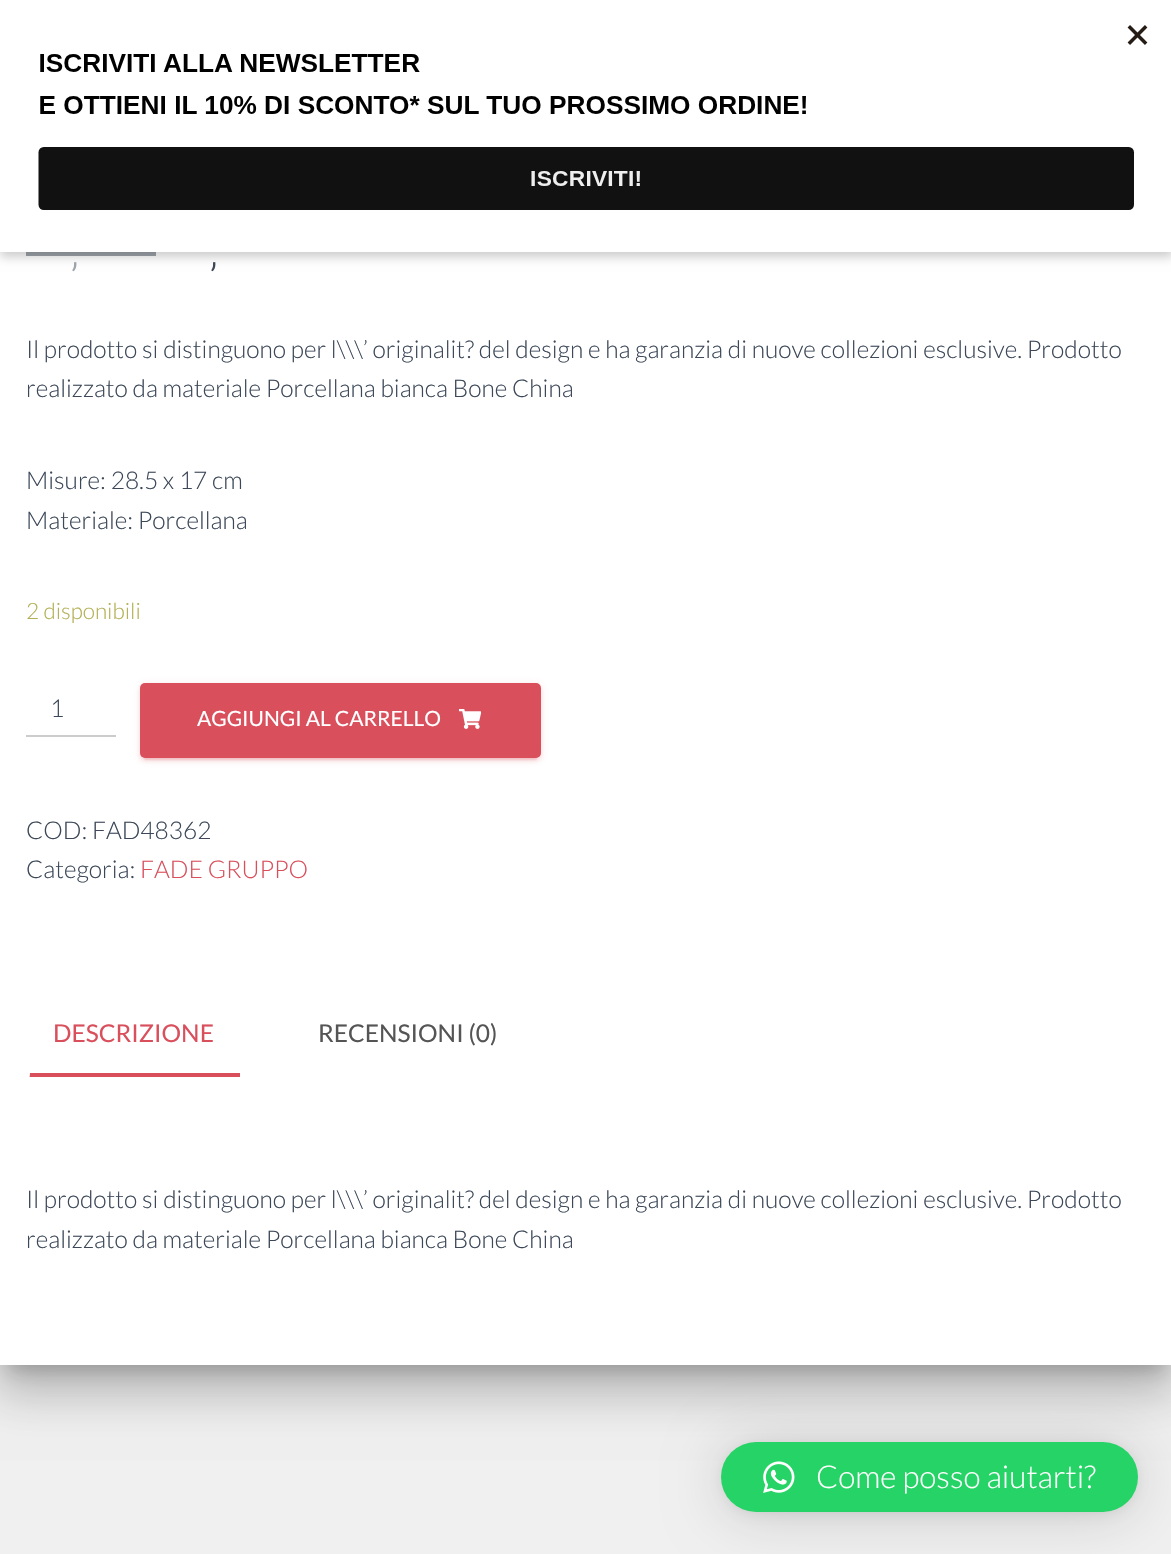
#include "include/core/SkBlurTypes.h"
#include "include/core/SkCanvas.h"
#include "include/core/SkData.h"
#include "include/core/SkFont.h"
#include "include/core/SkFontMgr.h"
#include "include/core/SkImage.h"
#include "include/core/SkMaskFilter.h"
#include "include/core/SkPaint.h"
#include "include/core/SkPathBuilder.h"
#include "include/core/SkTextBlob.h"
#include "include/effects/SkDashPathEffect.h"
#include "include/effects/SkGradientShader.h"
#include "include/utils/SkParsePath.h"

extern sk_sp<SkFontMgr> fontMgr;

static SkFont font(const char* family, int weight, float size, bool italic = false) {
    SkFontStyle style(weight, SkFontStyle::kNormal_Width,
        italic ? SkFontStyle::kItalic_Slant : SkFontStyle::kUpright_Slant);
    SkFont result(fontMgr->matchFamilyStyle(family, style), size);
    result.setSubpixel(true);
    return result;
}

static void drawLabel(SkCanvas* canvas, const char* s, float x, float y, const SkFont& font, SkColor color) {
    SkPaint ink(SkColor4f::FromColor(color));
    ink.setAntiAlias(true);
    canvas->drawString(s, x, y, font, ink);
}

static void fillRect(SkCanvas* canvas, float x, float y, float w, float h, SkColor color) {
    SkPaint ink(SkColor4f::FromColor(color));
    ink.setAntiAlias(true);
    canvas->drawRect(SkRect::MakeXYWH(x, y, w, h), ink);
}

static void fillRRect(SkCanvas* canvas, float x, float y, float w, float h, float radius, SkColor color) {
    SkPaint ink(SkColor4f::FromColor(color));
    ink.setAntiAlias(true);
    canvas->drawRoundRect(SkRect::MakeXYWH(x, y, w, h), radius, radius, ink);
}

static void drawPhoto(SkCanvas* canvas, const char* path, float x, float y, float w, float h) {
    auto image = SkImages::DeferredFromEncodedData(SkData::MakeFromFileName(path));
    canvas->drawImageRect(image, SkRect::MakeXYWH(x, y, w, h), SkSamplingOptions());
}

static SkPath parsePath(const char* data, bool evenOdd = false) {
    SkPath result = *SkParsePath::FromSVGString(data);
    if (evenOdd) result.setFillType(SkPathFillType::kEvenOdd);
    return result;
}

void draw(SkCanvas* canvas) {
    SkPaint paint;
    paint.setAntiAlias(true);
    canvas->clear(0xFFF0F0F0);
    paint.setColor(0x33000000);
    paint.setMaskFilter(SkMaskFilter::MakeBlur(kNormal_SkBlurStyle, 9));
    canvas->drawRect(SkRect::MakeXYWH(9, -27, 1155, 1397), paint);
    paint.setMaskFilter(nullptr);
    paint.setColor(0x1F000000);
    paint.setMaskFilter(SkMaskFilter::MakeBlur(kNormal_SkBlurStyle, 26));
    canvas->drawRect(SkRect::MakeXYWH(-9, -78, 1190, 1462), paint);
    paint.setMaskFilter(nullptr);
    paint.setColor(0x24000000);
    paint.setMaskFilter(SkMaskFilter::MakeBlur(kNormal_SkBlurStyle, 21));
    canvas->drawRect(SkRect::MakeXYWH(-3, -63, 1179, 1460), paint);
    paint.setMaskFilter(nullptr);
    fillRect(canvas, 0, 252, 1171, 1113, 0xFFFFFFFF);
    fillRect(canvas, 26, 252, 130, 4, 0xFF9EA4AC);
    paint.setColor(0x33000000);
    paint.setMaskFilter(SkMaskFilter::MakeBlur(kNormal_SkBlurStyle, 5));
    canvas->drawRect(SkRect::MakeXYWH(0, 5, 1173, 252), paint);
    paint.setMaskFilter(nullptr);
    fillRect(canvas, 0, 0, 1171, 252, 0xFFFFFFFF);
    drawPhoto(canvas, "assets/img1.png", 38, 25, 1110, 185);
    SkFont font1 = font("Roboto", 300, 40);
    drawLabel(canvas, ",", 71, 266, font1, 0xFF9EA4AC);
    drawLabel(canvas, ",", 210, 266, font1, 0xFF3C4858);
    SkFont font2 = font("Lato", 300, 24.5f);
    drawLabel(canvas, "Il prodotto si distinguono per l\\\\\\’ originalit? del design e ha garanzia di nuove collezioni esclusive. Prodotto", 26, 358, font2, 0xFF3C4858);
    drawLabel(canvas, "realizzato da materiale Porcellana bianca Bone China", 26, 397, font2, 0xFF3C4858);
    drawLabel(canvas, "Misure: 28.5 x 17 cm", 26, 489, font2, 0xFF3C4858);
    drawLabel(canvas, "Materiale: Porcellana", 26, 529, font2, 0xFF3C4858);
    SkFont font3 = font("Lato", 300, 22.5f);
    drawLabel(canvas, "2 disponibili", 26, 619, font3, 0xFFB3AF54);
    fillRect(canvas, 26, 735, 90, 2, 0xFFCCCCCC);
    drawLabel(canvas, "1", 50, 717, font2, 0xFF3C4858);
    paint.setColor(0x1FD94F5C);
    paint.setMaskFilter(SkMaskFilter::MakeBlur(kNormal_SkBlurStyle, 4.5f));
    canvas->drawRoundRect(SkRect::MakeXYWH(140, 684, 401, 76), 5, 5, paint);
    paint.setMaskFilter(nullptr);
    paint.setColor(0x33D94F5C);
    paint.setMaskFilter(SkMaskFilter::MakeBlur(kNormal_SkBlurStyle, 1));
    canvas->drawRoundRect(SkRect::MakeXYWH(144, 691, 393, 69), 2, 2, paint);
    paint.setMaskFilter(nullptr);
    paint.setColor(0x24D94F5C);
    paint.setMaskFilter(SkMaskFilter::MakeBlur(kNormal_SkBlurStyle, 2));
    canvas->drawRoundRect(SkRect::MakeXYWH(140, 686, 401, 75), 5, 5, paint);
    paint.setMaskFilter(nullptr);
    fillRRect(canvas, 140, 683, 401, 75, 5, 0xFFD94F5C);
    SkFont font4 = font("Lato", 400, 21);
    drawLabel(canvas, "AGGIUNGI AL CARRELLO", 197, 726, font4, 0xFFFFFFFF);
    drawPhoto(canvas, "assets/img2.png", 459, 709, 22, 20);
    drawLabel(canvas, "COD: FAD48362", 26, 839, font2, 0xFF3C4858);
    drawLabel(canvas, "Categoria:", 26, 878, font2, 0xFF3C4858);
    drawLabel(canvas, "FADE GRUPPO", 140, 878, font2, 0xFFD94F5C);
    fillRect(canvas, 26, 1073, 214, 4, 0xFFD94F5C);
    SkFont font5 = font("Lato", 400, 24.5f);
    drawLabel(canvas, "DESCRIZIONE", 53, 1042, font5, 0xFFD94F5C);
    paint.setColor(0xFFFFFFFF);
    canvas->drawPath(parsePath("M21 1078V1082C27.5 1082 30 1079.5 30 1073H26C25.5 1075.5 23.5 1077 21 1078Z"), paint);
    drawLabel(canvas, "RECENSIONI (0)", 318, 1042, font5, 0xFF555555);
    drawLabel(canvas, "Il prodotto si distinguono per l\\\\\\’ originalit? del design e ha garanzia di nuove collezioni esclusive. Prodotto", 26, 1208, font2, 0xFF3C4858);
    drawLabel(canvas, "realizzato da materiale Porcellana bianca Bone China", 26, 1248, font2, 0xFF3C4858);
    paint.setColor(0x29000000);
    paint.setMaskFilter(SkMaskFilter::MakeBlur(kNormal_SkBlurStyle, 28));
    canvas->drawRoundRect(SkRect::MakeXYWH(721, 1446, 417, 70), 35, 35, paint);
    paint.setMaskFilter(nullptr);
    paint.setColor(0x0F000000);
    paint.setMaskFilter(SkMaskFilter::MakeBlur(kNormal_SkBlurStyle, 5));
    canvas->drawRoundRect(SkRect::MakeXYWH(721, 1444, 417, 70), 35, 35, paint);
    paint.setMaskFilter(nullptr);
    fillRRect(canvas, 721, 1442, 417, 70, 35, 0xFF25D366);
    drawPhoto(canvas, "assets/img3.png", 763, 1461, 32, 32);
    SkFont font6 = font("Lato", 300, 31.5f);
    drawLabel(canvas, "Come posso aiutarti?", 816, 1488, font6, 0xFFFFFFFF);
}
